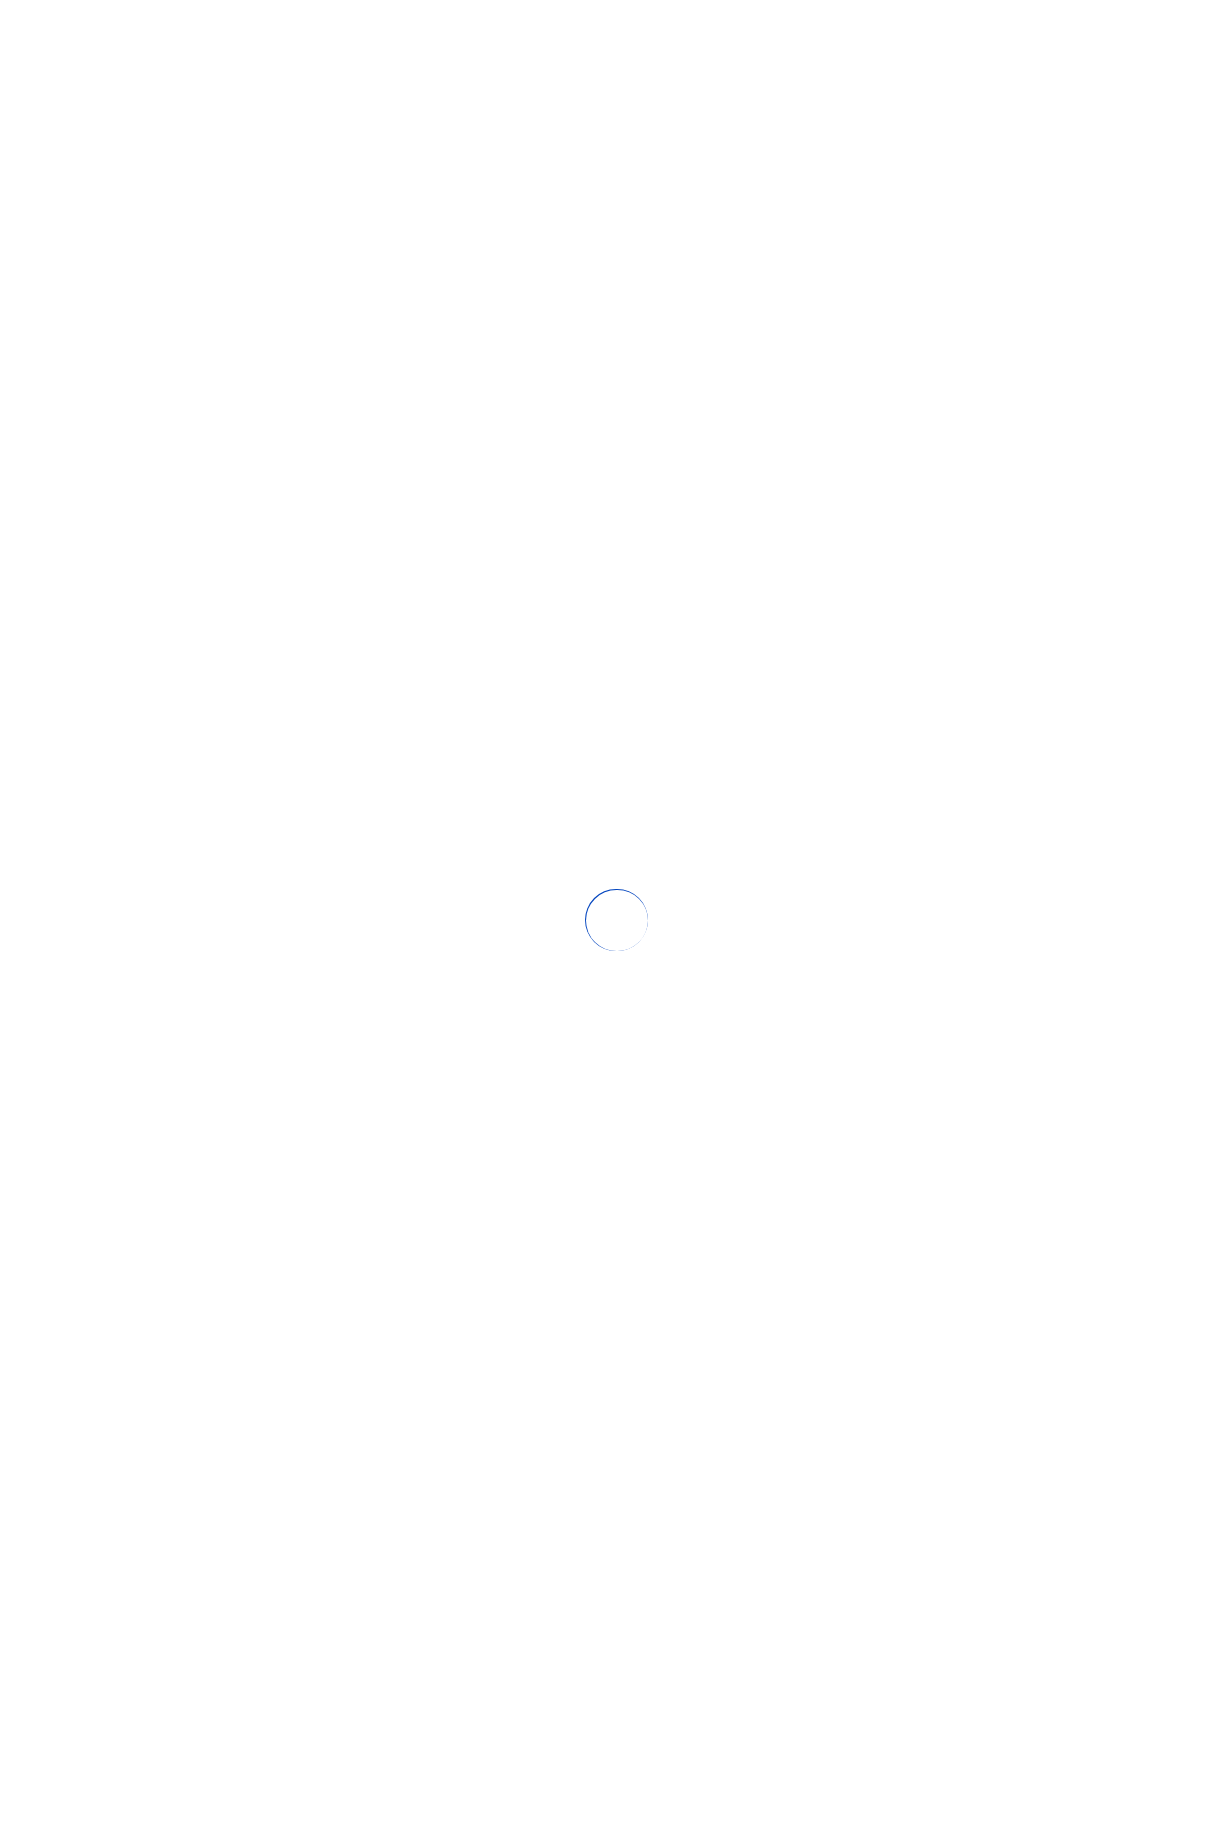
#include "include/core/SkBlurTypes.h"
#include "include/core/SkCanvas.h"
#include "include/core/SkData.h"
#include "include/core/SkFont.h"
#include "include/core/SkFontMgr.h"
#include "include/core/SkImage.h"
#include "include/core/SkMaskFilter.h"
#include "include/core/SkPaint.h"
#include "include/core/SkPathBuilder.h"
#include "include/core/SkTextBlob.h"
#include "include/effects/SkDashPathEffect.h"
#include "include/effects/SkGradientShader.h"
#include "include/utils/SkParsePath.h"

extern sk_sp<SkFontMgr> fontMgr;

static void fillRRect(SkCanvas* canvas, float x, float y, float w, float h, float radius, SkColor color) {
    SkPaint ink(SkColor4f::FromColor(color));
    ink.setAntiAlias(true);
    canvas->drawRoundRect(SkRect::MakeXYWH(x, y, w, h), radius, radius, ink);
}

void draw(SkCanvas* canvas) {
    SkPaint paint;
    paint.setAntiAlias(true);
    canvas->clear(0xFFFFFFFF);
    fillRRect(canvas, 585, 889, 63, 62, 31, 0xFF0345BF);
    fillRRect(canvas, 586, 890, 62, 61, 30.5f, 0xFFFFFFFF);
}
